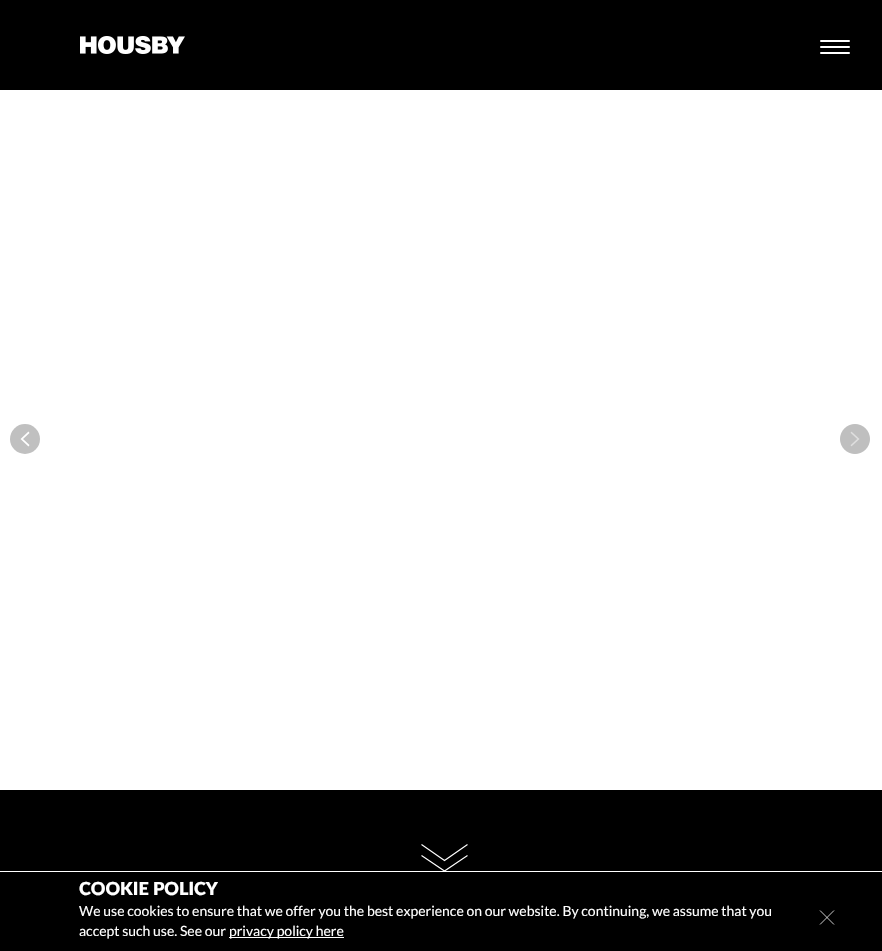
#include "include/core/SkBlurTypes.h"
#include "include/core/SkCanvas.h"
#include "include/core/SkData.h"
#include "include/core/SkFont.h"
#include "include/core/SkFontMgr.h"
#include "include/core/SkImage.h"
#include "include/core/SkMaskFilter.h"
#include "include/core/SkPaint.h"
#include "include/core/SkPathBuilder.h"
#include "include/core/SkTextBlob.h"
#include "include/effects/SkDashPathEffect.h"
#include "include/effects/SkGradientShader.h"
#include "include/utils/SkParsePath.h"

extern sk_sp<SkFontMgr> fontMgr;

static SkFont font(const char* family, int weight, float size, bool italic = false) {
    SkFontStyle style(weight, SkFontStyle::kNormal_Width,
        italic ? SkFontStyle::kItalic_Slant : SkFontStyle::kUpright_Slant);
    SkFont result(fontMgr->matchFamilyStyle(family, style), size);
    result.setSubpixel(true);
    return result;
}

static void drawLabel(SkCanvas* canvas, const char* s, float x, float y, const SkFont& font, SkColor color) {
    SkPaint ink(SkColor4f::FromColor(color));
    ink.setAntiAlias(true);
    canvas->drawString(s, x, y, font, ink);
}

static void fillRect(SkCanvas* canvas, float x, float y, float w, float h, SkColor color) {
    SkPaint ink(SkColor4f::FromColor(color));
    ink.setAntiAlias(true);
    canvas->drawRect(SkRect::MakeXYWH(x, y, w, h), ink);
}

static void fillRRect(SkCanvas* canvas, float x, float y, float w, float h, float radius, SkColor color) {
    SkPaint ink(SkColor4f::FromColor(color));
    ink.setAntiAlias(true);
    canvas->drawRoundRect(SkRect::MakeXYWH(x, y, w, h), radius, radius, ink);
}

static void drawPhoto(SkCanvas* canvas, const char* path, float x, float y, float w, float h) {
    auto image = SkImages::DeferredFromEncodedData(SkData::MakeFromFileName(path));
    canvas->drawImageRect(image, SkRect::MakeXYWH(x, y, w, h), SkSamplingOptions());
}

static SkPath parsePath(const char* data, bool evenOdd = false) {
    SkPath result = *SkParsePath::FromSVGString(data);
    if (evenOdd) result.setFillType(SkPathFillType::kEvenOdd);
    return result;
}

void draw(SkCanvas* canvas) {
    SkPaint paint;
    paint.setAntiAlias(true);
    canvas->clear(0xFFFFFFFF);
    fillRect(canvas, 0, 0, 882, 90, 0xFF000000);
    drawPhoto(canvas, "assets/img1.png", 80, 36, 105, 18);
    fillRRect(canvas, 820, 40, 30, 2, 1, 0xFFFFFFFF);
    fillRRect(canvas, 820, 46, 30, 2, 1, 0xFFFFFFFF);
    fillRRect(canvas, 820, 52, 30, 2, 1, 0xFFFFFFFF);
    paint.setColor(0xFFC0C0C0);
    canvas->drawCircle(25, 439, 15, paint);
    paint.setColor(0xFFFFFFFF);
    canvas->drawPath(parsePath("M28.5 446.5L20.5 439L28.5 431.5L29.5 433L23 439L29.5 445Z"), paint);
    drawPhoto(canvas, "assets/img2.png", 840, 424, 30, 30);
    fillRect(canvas, 0, 790, 882, 81, 0xFF000000);
    paint.setStroke(true);
    paint.setStrokeWidth(1.1f);
    canvas->drawPath(parsePath("M421.5 844.5L444.5 860.5L467.5 844.5M421.5 855.5L444.5 871L467.5 855.5"), paint);
    fillRect(canvas, 0, 872, 882, 79, 0xFF000000);
    SkFont font1 = font("Lato", 900, 18);
    drawLabel(canvas, "COOKIE POLICY", 79, 895, font1, 0xFFFFFFFF);
    SkFont font2 = font("Lato", 400, 14);
    drawLabel(canvas, "We use cookies to ensure that we offer you the best experience on our website. By continuing, we assume that you", 79, 916, font2, 0xFFFFFFFF);
    drawLabel(canvas, "accept such use. See our", 79, 936, font2, 0xFFFFFFFF);
    fillRect(canvas, 229, 937, 115, 1, 0xFFFFFFFF);
    drawLabel(canvas, "privacy policy here", 229, 936, font2, 0xFFFFFFFF);
    paint.setStrokeWidth(0.8f);
    canvas->drawPath(parsePath("M834 910.5L820 924.5M820 910.5L834 924.5"), paint);
}
